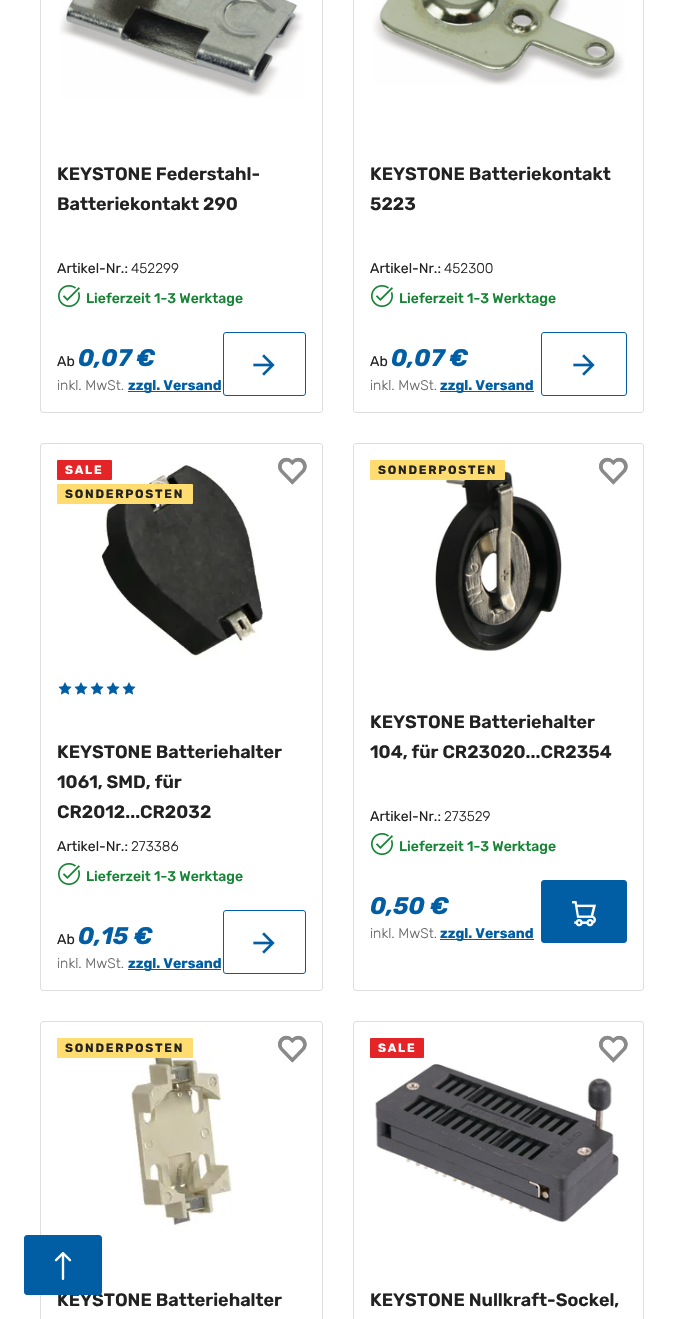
#include "include/core/SkBlurTypes.h"
#include "include/core/SkCanvas.h"
#include "include/core/SkData.h"
#include "include/core/SkFont.h"
#include "include/core/SkFontMgr.h"
#include "include/core/SkImage.h"
#include "include/core/SkMaskFilter.h"
#include "include/core/SkPaint.h"
#include "include/core/SkPathBuilder.h"
#include "include/core/SkTextBlob.h"
#include "include/effects/SkDashPathEffect.h"
#include "include/effects/SkGradientShader.h"
#include "include/utils/SkParsePath.h"

extern sk_sp<SkFontMgr> fontMgr;

static SkFont font(const char* family, int weight, float size, bool italic = false) {
    SkFontStyle style(weight, SkFontStyle::kNormal_Width,
        italic ? SkFontStyle::kItalic_Slant : SkFontStyle::kUpright_Slant);
    SkFont result(fontMgr->matchFamilyStyle(family, style), size);
    result.setSubpixel(true);
    return result;
}

static void drawLabel(SkCanvas* canvas, const char* s, float x, float y, const SkFont& font, SkColor color) {
    SkPaint ink(SkColor4f::FromColor(color));
    ink.setAntiAlias(true);
    canvas->drawString(s, x, y, font, ink);
}

static void drawTracked(SkCanvas* canvas, const char* s, float x, float y, const SkFont& font, const SkPaint& ink, float letter, float word) {
    std::vector<SkGlyphID> glyphs(font.countText(s, strlen(s), SkTextEncoding::kUTF8));
    std::vector<float> xs(glyphs.size());
    font.textToGlyphs(s, strlen(s), SkTextEncoding::kUTF8, glyphs);
    font.getXPos(glyphs, xs, x);
    float extra = 0;
    for (size_t i = 0; i < glyphs.size(); i++) {
        xs[i] += extra;
        extra += letter + word * (glyphs[i] == font.unicharToGlyph(' '));
    }
    canvas->drawTextBlob(SkTextBlob::MakeFromPosHGlyphs(glyphs, xs, y, font), 0, 0, ink);
}

static void fillRect(SkCanvas* canvas, float x, float y, float w, float h, SkColor color) {
    SkPaint ink(SkColor4f::FromColor(color));
    ink.setAntiAlias(true);
    canvas->drawRect(SkRect::MakeXYWH(x, y, w, h), ink);
}

static void fillRRect(SkCanvas* canvas, float x, float y, float w, float h, float radius, SkColor color) {
    SkPaint ink(SkColor4f::FromColor(color));
    ink.setAntiAlias(true);
    canvas->drawRoundRect(SkRect::MakeXYWH(x, y, w, h), radius, radius, ink);
}

static void drawPhoto(SkCanvas* canvas, const char* path, float x, float y, float w, float h) {
    auto image = SkImages::DeferredFromEncodedData(SkData::MakeFromFileName(path));
    canvas->drawImageRect(image, SkRect::MakeXYWH(x, y, w, h), SkSamplingOptions());
}

void draw(SkCanvas* canvas) {
    SkPaint paint;
    paint.setAntiAlias(true);
    canvas->clear(0xFFFFFFFF);
    paint.setStroke(true);
    paint.setStrokeWidth(1);
    paint.setColor(0xFFDEDEDE);
    canvas->drawRoundRect(SkRect::MakeXYWH(40.5f, -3.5f, 282, 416), 2.5f, 2.5f, paint);
    drawPhoto(canvas, "assets/img1.png", 59, 0, 245, 98);
    SkFont font1 = font("Rubik", 600, 18);
    drawLabel(canvas, "KEYSTONE Federstahl-", 57, 180, font1, 0xFF222222);
    drawLabel(canvas, "Batteriekontakt 290", 57, 210, font1, 0xFF222222);
    SkFont font2 = font("Rubik", 400, 14);
    drawLabel(canvas, "Artikel-Nr.:", 57, 273, font2, 0xFF222222);
    SkFont font3 = font("Rubik", 300, 14);
    drawLabel(canvas, "452299", 131, 273, font3, 0xFF222222);
    drawPhoto(canvas, "assets/img2.png", 58, 285, 22, 22);
    SkFont font4 = font("Rubik", 500, 14);
    drawLabel(canvas, "Lieferzeit 1-3 Werktage", 86, 303, font4, 0xFF148333);
    drawLabel(canvas, "Ab", 57, 366, font2, 0xFF222222);
    SkFont font5 = font("Rubik", 700, 24, true);
    drawLabel(canvas, "0,07 €", 78, 366, font5, 0xFF025EA4);
    drawLabel(canvas, "inkl. MwSt.", 57, 390, font3, 0xFF676767);
    fillRect(canvas, 128, 391, 93, 1, 0xFF025EA4);
    SkFont font6 = font("Rubik", 700, 14);
    drawLabel(canvas, "zzgl. Versand", 128, 390, font6, 0xFF025EA4);
    paint.setColor(0xFF025EA4);
    canvas->drawRoundRect(SkRect::MakeXYWH(223.5f, 332.5f, 82, 63), 2.5f, 2.5f, paint);
    drawPhoto(canvas, "assets/img3.png", 253, 354, 22, 22);
    paint.setColor(0xFFDEDEDE);
    canvas->drawRoundRect(SkRect::MakeXYWH(353.5f, -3.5f, 290, 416), 2.5f, 2.5f, paint);
    drawPhoto(canvas, "assets/img4.png", 372, 0, 253, 86);
    drawLabel(canvas, "KEYSTONE Batteriekontakt", 370, 180, font1, 0xFF222222);
    drawLabel(canvas, "5223", 370, 210, font1, 0xFF222222);
    drawLabel(canvas, "Artikel-Nr.:", 370, 273, font2, 0xFF222222);
    drawLabel(canvas, "452300", 444, 273, font3, 0xFF222222);
    drawPhoto(canvas, "assets/img2.png", 371, 285, 22, 22);
    drawLabel(canvas, "Lieferzeit 1-3 Werktage", 399, 303, font4, 0xFF148333);
    drawLabel(canvas, "Ab", 370, 366, font2, 0xFF222222);
    drawLabel(canvas, "0,07 €", 391, 366, font5, 0xFF025EA4);
    drawLabel(canvas, "inkl. MwSt.", 370, 390, font3, 0xFF676767);
    fillRect(canvas, 440, 391, 94, 1, 0xFF025EA4);
    drawLabel(canvas, "zzgl. Versand", 440, 390, font6, 0xFF025EA4);
    paint.setColor(0xFF025EA4);
    canvas->drawRoundRect(SkRect::MakeXYWH(541.5f, 332.5f, 85, 63), 2.5f, 2.5f, paint);
    drawPhoto(canvas, "assets/img3.png", 573, 354, 22, 22);
    paint.setColor(0xFFDEDEDE);
    canvas->drawRoundRect(SkRect::MakeXYWH(40.5f, 443.5f, 282, 547), 2.5f, 2.5f, paint);
    drawPhoto(canvas, "assets/img5.png", 278, 457, 29, 28);
    drawPhoto(canvas, "assets/img6.png", 101, 463, 162, 194);
    drawPhoto(canvas, "assets/img7.png", 278, 457, 29, 28);
    fillRRect(canvas, 57, 460, 55, 20, 1, 0xFFE52427);
    SkFont font7 = font("Rubik", 700, 12);
    paint.setStroke(false);
    paint.setColor(0xFFFFFFFF);
    drawTracked(canvas, "SALE", 65, 474, font7, paint, 1.75f, 0);
    fillRRect(canvas, 57, 484, 136, 20, 1, 0xFFFEDC70);
    paint.setColor(0xFF222222);
    drawTracked(canvas, "SONDERPOSTEN", 65, 498, font7, paint, 1.75f, 0);
    drawPhoto(canvas, "assets/img8.png", 58, 682, 14, 13);
    drawPhoto(canvas, "assets/img8.png", 74, 682, 14, 13);
    drawPhoto(canvas, "assets/img8.png", 90, 682, 14, 13);
    drawPhoto(canvas, "assets/img8.png", 106, 682, 14, 13);
    drawPhoto(canvas, "assets/img8.png", 122, 682, 14, 13);
    drawLabel(canvas, "KEYSTONE Batteriehalter", 57, 758, font1, 0xFF222222);
    drawLabel(canvas, "1061, SMD, für", 57, 788, font1, 0xFF222222);
    drawLabel(canvas, "CR2012...CR2032", 57, 818, font1, 0xFF222222);
    drawLabel(canvas, "Artikel-Nr.:", 57, 851, font2, 0xFF222222);
    drawLabel(canvas, "273386", 131, 851, font3, 0xFF222222);
    drawPhoto(canvas, "assets/img2.png", 58, 863, 22, 22);
    drawLabel(canvas, "Lieferzeit 1-3 Werktage", 86, 881, font4, 0xFF148333);
    drawLabel(canvas, "Ab", 57, 944, font2, 0xFF222222);
    drawLabel(canvas, "0,15 €", 78, 944, font5, 0xFF025EA4);
    drawLabel(canvas, "inkl. MwSt.", 57, 968, font3, 0xFF676767);
    fillRect(canvas, 128, 969, 93, 1, 0xFF025EA4);
    drawLabel(canvas, "zzgl. Versand", 128, 968, font6, 0xFF025EA4);
    paint.setStroke(true);
    paint.setColor(0xFF025EA4);
    canvas->drawRoundRect(SkRect::MakeXYWH(223.5f, 910.5f, 82, 63), 2.5f, 2.5f, paint);
    drawPhoto(canvas, "assets/img3.png", 253, 932, 22, 22);
    paint.setColor(0xFFDEDEDE);
    canvas->drawRoundRect(SkRect::MakeXYWH(353.5f, 443.5f, 290, 547), 2.5f, 2.5f, paint);
    drawPhoto(canvas, "assets/img5.png", 599, 457, 29, 28);
    drawPhoto(canvas, "assets/img9.png", 435, 470, 127, 181);
    fillRRect(canvas, 370, 460, 135, 20, 1, 0xFFFEDC70);
    paint.setStroke(false);
    paint.setColor(0xFF222222);
    drawTracked(canvas, "SONDERPOSTEN", 378, 474, font7, paint, 1.75f, 0);
    drawPhoto(canvas, "assets/img7.png", 599, 457, 29, 28);
    drawLabel(canvas, "KEYSTONE Batteriehalter", 370, 728, font1, 0xFF222222);
    drawLabel(canvas, "104, für CR23020...CR2354", 370, 758, font1, 0xFF222222);
    drawLabel(canvas, "Artikel-Nr.:", 370, 821, font2, 0xFF222222);
    drawLabel(canvas, "273529", 444, 821, font3, 0xFF222222);
    drawPhoto(canvas, "assets/img2.png", 371, 833, 22, 22);
    drawLabel(canvas, "Lieferzeit 1-3 Werktage", 399, 851, font4, 0xFF148333);
    drawLabel(canvas, "0,50 €", 370, 914, font5, 0xFF025EA4);
    drawLabel(canvas, "inkl. MwSt.", 370, 938, font3, 0xFF676767);
    fillRect(canvas, 440, 939, 94, 1, 0xFF025EA4);
    drawLabel(canvas, "zzgl. Versand", 440, 938, font6, 0xFF025EA4);
    paint.setColor(0xFF025EA4);
    canvas->drawRoundRect(SkRect::MakeXYWH(541.5f, 880.5f, 85, 62), 2.5f, 2.5f, paint);
    paint.setStroke(true);
    canvas->drawRoundRect(SkRect::MakeXYWH(541.5f, 880.5f, 85, 62), 2.5f, 2.5f, paint);
    drawPhoto(canvas, "assets/img10.png", 572, 901, 24, 26);
    paint.setColor(0xFFDEDEDE);
    canvas->drawRoundRect(SkRect::MakeXYWH(40.5f, 1021.5f, 282, 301), 2.5f, 2.5f, paint);
    drawPhoto(canvas, "assets/img5.png", 278, 1035, 29, 28);
    drawPhoto(canvas, "assets/img11.png", 131, 1050, 101, 176);
    fillRRect(canvas, 57, 1038, 136, 20, 1, 0xFFFEDC70);
    paint.setStroke(false);
    paint.setColor(0xFF222222);
    drawTracked(canvas, "SONDERPOSTEN", 65, 1052, font7, paint, 1.75f, 0);
    drawPhoto(canvas, "assets/img7.png", 278, 1035, 29, 28);
    drawLabel(canvas, "KEYSTONE Batteriehalter", 57, 1306, font1, 0xFF222222);
    paint.setStroke(true);
    paint.setColor(0xFFDEDEDE);
    canvas->drawRoundRect(SkRect::MakeXYWH(353.5f, 1021.5f, 290, 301), 2.5f, 2.5f, paint);
    drawPhoto(canvas, "assets/img5.png", 599, 1035, 29, 28);
    fillRRect(canvas, 370, 1038, 54, 20, 1, 0xFFE52427);
    paint.setStroke(false);
    paint.setColor(0xFFFFFFFF);
    drawTracked(canvas, "SALE", 378, 1052, font7, paint, 1.75f, 0);
    drawPhoto(canvas, "assets/img7.png", 599, 1035, 29, 28);
    drawPhoto(canvas, "assets/img12.png", 375, 1063, 244, 160);
    drawLabel(canvas, "KEYSTONE Nullkraft-Sockel,", 370, 1306, font1, 0xFF222222);
    paint.setColor(0xFF025EA4);
    canvas->drawRoundRect(SkRect::MakeXYWH(24.5f, 1235.5f, 77, 59), 2.5f, 2.5f, paint);
    paint.setStroke(true);
    canvas->drawRoundRect(SkRect::MakeXYWH(24.5f, 1235.5f, 77, 59), 2.5f, 2.5f, paint);
    drawPhoto(canvas, "assets/img13.png", 54, 1252, 18, 28);
}
